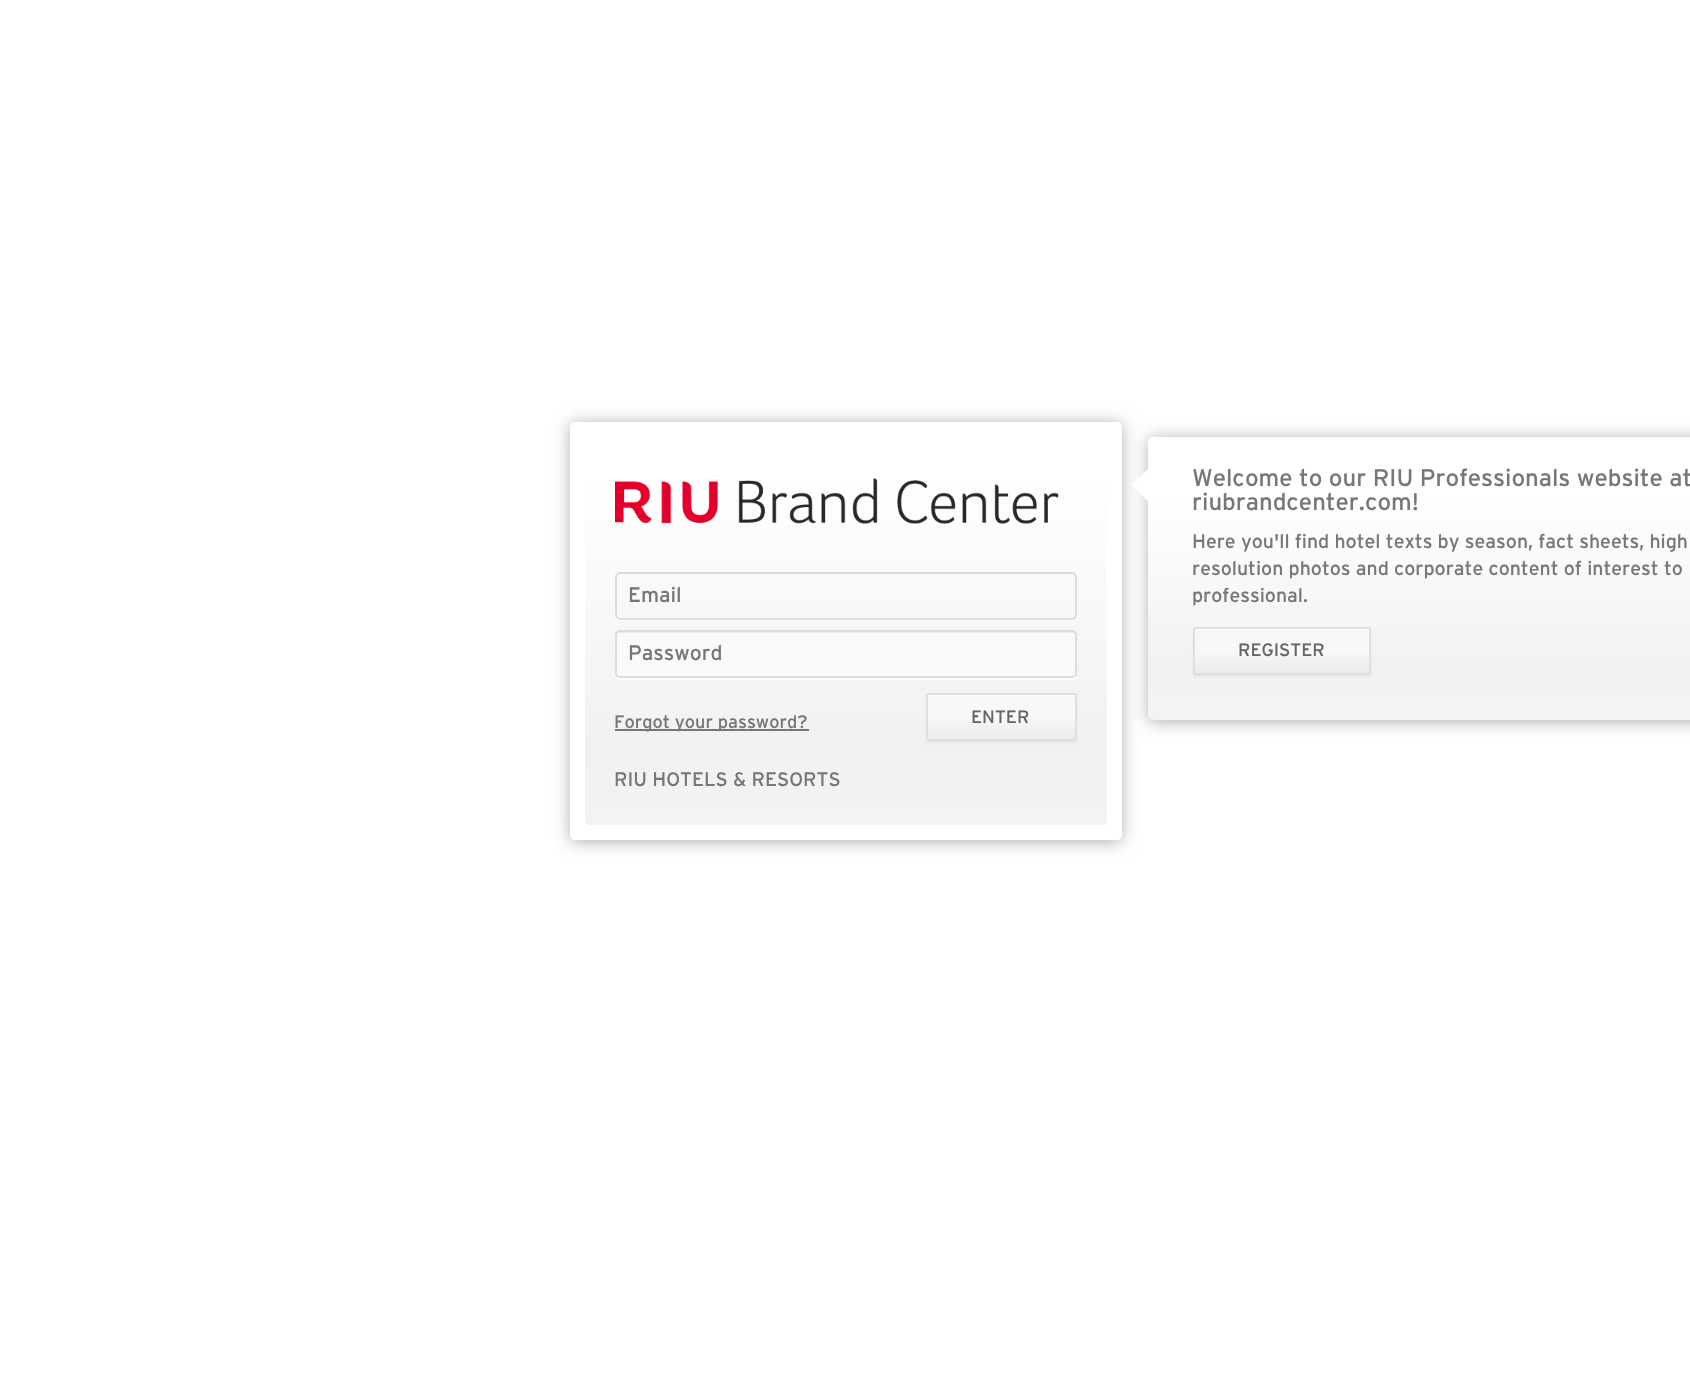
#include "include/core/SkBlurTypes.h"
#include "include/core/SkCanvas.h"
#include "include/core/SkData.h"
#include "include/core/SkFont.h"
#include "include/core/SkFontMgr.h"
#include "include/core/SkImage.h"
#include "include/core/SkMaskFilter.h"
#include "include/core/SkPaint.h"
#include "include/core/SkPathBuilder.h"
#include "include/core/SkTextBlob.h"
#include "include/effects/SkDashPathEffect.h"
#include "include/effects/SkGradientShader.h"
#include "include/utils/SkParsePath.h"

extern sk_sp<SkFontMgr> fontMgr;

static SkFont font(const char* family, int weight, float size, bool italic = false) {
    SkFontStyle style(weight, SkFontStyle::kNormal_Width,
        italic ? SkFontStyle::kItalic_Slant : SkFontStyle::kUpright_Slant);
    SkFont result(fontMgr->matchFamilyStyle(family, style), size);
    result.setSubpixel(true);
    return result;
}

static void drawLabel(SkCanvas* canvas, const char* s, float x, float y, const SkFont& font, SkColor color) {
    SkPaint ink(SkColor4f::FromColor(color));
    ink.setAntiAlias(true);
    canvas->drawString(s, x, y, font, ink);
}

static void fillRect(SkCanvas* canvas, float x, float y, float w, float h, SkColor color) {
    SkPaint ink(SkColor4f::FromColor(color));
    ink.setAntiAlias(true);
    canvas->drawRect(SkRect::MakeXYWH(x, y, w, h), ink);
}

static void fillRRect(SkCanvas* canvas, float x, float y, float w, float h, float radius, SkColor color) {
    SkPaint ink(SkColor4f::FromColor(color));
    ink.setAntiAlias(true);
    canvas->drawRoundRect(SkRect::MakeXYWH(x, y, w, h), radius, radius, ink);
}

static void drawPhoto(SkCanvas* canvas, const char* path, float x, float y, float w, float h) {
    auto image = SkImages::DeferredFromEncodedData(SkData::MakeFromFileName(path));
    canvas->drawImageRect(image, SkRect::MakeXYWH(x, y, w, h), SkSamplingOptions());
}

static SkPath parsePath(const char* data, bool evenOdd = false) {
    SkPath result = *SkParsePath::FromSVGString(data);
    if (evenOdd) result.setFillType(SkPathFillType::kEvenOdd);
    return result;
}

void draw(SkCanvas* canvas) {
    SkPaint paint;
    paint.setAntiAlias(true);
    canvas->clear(0xFFFFFFFF);
    canvas->save();
    canvas->clipPath(parsePath("M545 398H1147V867H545ZM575 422H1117C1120 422 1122 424 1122 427V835C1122 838 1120 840 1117 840H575C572 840 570 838 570 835V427C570 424 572 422 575 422Z", true), true);
    paint.setColor(0x4D000000);
    paint.setMaskFilter(SkMaskFilter::MakeBlur(kNormal_SkBlurStyle, 8));
    canvas->drawRoundRect(SkRect::MakeXYWH(570, 423, 552, 419), 5, 5, paint);
    paint.setMaskFilter(nullptr);
    canvas->restore();
    {
        const SkColor colors[] = {0xFFFFFFFF, 0xFFF1F1F1, 0xFFF3F3F3};
        const float stops[] = {0.1f, 0.8f, 1};
        const SkPoint ends[] = {{846, 437}, {846, 825}};
        paint.setShader(SkGradientShader::MakeLinear(ends, colors, stops, 3, SkTileMode::kClamp));
        paint.setAlpha(255);
    }
    canvas->drawRoundRect(SkRect::MakeXYWH(585, 437, 522, 388), 5, 5, paint);
    paint.setShader(nullptr);
    paint.setColor(0x4D000000);
    paint.setMaskFilter(SkMaskFilter::MakeBlur(kNormal_SkBlurStyle, 8));
    canvas->drawRoundRect(SkRect::MakeXYWH(1148, 438, 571, 284), 5, 5, paint);
    paint.setMaskFilter(nullptr);
    {
        const SkColor colors[] = {0xFFFFFFFF, 0xFFF2F2F2, 0xFFF3F3F3};
        const float stops[] = {0.2f, 0.8f, 1};
        const SkPoint ends[] = {{1470, 437}, {1470, 720}};
        paint.setShader(SkGradientShader::MakeLinear(ends, colors, stops, 3, SkTileMode::kClamp));
        paint.setAlpha(255);
    }
    canvas->drawRoundRect(SkRect::MakeXYWH(1148, 437, 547, 283), 5, 5, paint);
    paint.setShader(nullptr);
    paint.setColor(0xFFFFFFFF);
    canvas->drawPath(parsePath("M1147.5 469.5L1163.5 485L1147.5 501L1131.5 485Z"), paint);
    canvas->drawPath(parsePath("M1147.5 469.5L1163.5 485L1162.5 486.5L1146.5 470.5Z"), paint);
    canvas->drawPath(parsePath("M1147.5 469.5L1148.5 470.5L1132.5 486.5L1131.5 485Z"), paint);
    SkFont font1 = font("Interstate", 400, 24);
    drawLabel(canvas, "Welcome to our RIU Professionals website at", 1192, 486, font1, 0xFF777777);
    drawLabel(canvas, "riubrandcenter.com!", 1192, 510, font1, 0xFF777777);
    SkFont font2 = font("Interstate", 400, 19.5f);
    drawLabel(canvas, "Here you'll find hotel texts by season, fact sheets, high", 1192, 548, font2, 0xFF777777);
    drawLabel(canvas, "resolution photos and corporate content of interest to", 1192, 575, font2, 0xFF777777);
    drawLabel(canvas, "professional.", 1192, 602, font2, 0xFF777777);
    paint.setColor(0x0D000000);
    paint.setMaskFilter(SkMaskFilter::MakeBlur(kNormal_SkBlurStyle, 1));
    canvas->drawRoundRect(SkRect::MakeXYWH(1193, 629, 178, 48), 3, 3, paint);
    paint.setMaskFilter(nullptr);
    canvas->save();
    canvas->clipPath(parsePath("M1196 627H1368C1369.5 627 1371 628.5 1371 630V672C1371 673.5 1369.5 675 1368 675H1196C1194.5 675 1193 673.5 1193 672V630C1193 628.5 1194.5 627 1196 627Z"), true);
    {
        const SkColor colors[] = {0xFFF8F8F8, 0xFFEAEAEA};
        const float stops[] = {0.5f, 1};
        const SkPoint ends[] = {{1282, 629}, {1282, 674}};
        paint.setShader(SkGradientShader::MakeLinear(ends, colors, stops, 2, SkTileMode::kClamp));
        paint.setAlpha(255);
    }
    canvas->drawRect(SkRect::MakeXYWH(1193, 629, 178, 45), paint);
    canvas->restore();
    paint.setShader(nullptr);
    paint.setColor(0xFFFFFFFF);
    canvas->drawPath(parsePath("M1196 630H1368C1369 630 1370 631 1370 632C1370 631 1370 629 1368 629H1196C1194 629 1194 631 1194 632C1194 631 1195 630 1196 630Z"), paint);
    paint.setStroke(true);
    paint.setStrokeWidth(2);
    paint.setColor(0xFFDFDFDF);
    canvas->drawRoundRect(SkRect::MakeXYWH(1194, 628, 176, 46), 2, 2, paint);
    SkFont font3 = font("Interstate", 400, 18);
    drawLabel(canvas, "REGISTER", 1238, 656, font3, 0xFF666666);
    paint.setStroke(false);
    paint.setColor(0xFFFEFEFE);
    canvas->drawPath(parsePath("M615 615C615 618 617 621 620 621H1072C1075 621 1077 618 1077 615C1077 617 1075 620 1072 620H620C617 620 615 617 615 615Z"), paint);
    paint.setStroke(true);
    paint.setColor(0xFFDDDDDD);
    canvas->drawRoundRect(SkRect::MakeXYWH(616, 573, 460, 46), 4, 4, paint);
    SkFont font4 = font("Interstate", 400, 21);
    drawLabel(canvas, "Email", 628, 602, font4, 0xFF777777);
    paint.setStroke(false);
    paint.setColor(0xFFFEFEFE);
    canvas->drawPath(parsePath("M615 674V675C615 678 617 680 620 680H1072C1075 680 1077 678 1077 675V674C1077 676 1075 678 1072 678H620C617 678 615 676 615 674Z"), paint);
    fillRRect(canvas, 615, 630, 462, 48, 5, 0xFFFAFAFA);
    paint.setColor(0xFFEEEEEE);
    canvas->drawPath(parsePath("M620 633H1072C1074 633 1076 634 1076 636V635C1076 633 1075 632 1073 632H620C619 632 618 633 617 634Z"), paint);
    paint.setStroke(true);
    paint.setColor(0xFFDDDDDD);
    canvas->drawRoundRect(SkRect::MakeXYWH(616, 631, 460, 46), 4, 4, paint);
    drawLabel(canvas, "Password", 628, 660, font4, 0xFF777777);
    fillRect(canvas, 615, 729, 194, 2, 0xFF777777);
    drawLabel(canvas, "Forgot your password?", 614, 728, font3, 0xFF777777);
    paint.setStroke(false);
    paint.setColor(0x0D000000);
    paint.setMaskFilter(SkMaskFilter::MakeBlur(kNormal_SkBlurStyle, 1));
    canvas->drawRoundRect(SkRect::MakeXYWH(926, 695, 151, 48), 3, 3, paint);
    paint.setMaskFilter(nullptr);
    canvas->save();
    canvas->clipPath(parsePath("M929 693H1074C1075.5 693 1077 694.5 1077 696V738C1077 739.5 1075.5 741 1074 741H929C927.5 741 926 739.5 926 738V696C926 694.5 927.5 693 929 693Z"), true);
    {
        const SkColor colors[] = {0xFFF8F8F8, 0xFFEAEAEA};
        const float stops[] = {0.5f, 1};
        const SkPoint ends[] = {{1001, 695}, {1001, 740}};
        paint.setShader(SkGradientShader::MakeLinear(ends, colors, stops, 2, SkTileMode::kClamp));
        paint.setAlpha(255);
    }
    canvas->drawRect(SkRect::MakeXYWH(926, 695, 151, 45), paint);
    canvas->restore();
    paint.setShader(nullptr);
    paint.setColor(0xFFFFFFFF);
    canvas->drawPath(parsePath("M928 696H1074C1075 696 1076 697 1076 698C1076 697 1076 695 1074 695H928C927 695 927 697 927 698Z"), paint);
    paint.setStroke(true);
    paint.setColor(0xFFDFDFDF);
    canvas->drawRoundRect(SkRect::MakeXYWH(927, 694, 149, 46), 2, 2, paint);
    drawLabel(canvas, "ENTER", 971, 723, font3, 0xFF666666);
    drawLabel(canvas, "RIU HOTELS & RESORTS", 614, 786, font2, 0xFF777777);
    drawPhoto(canvas, "assets/img1.png", 615, 478, 444, 46);
}
